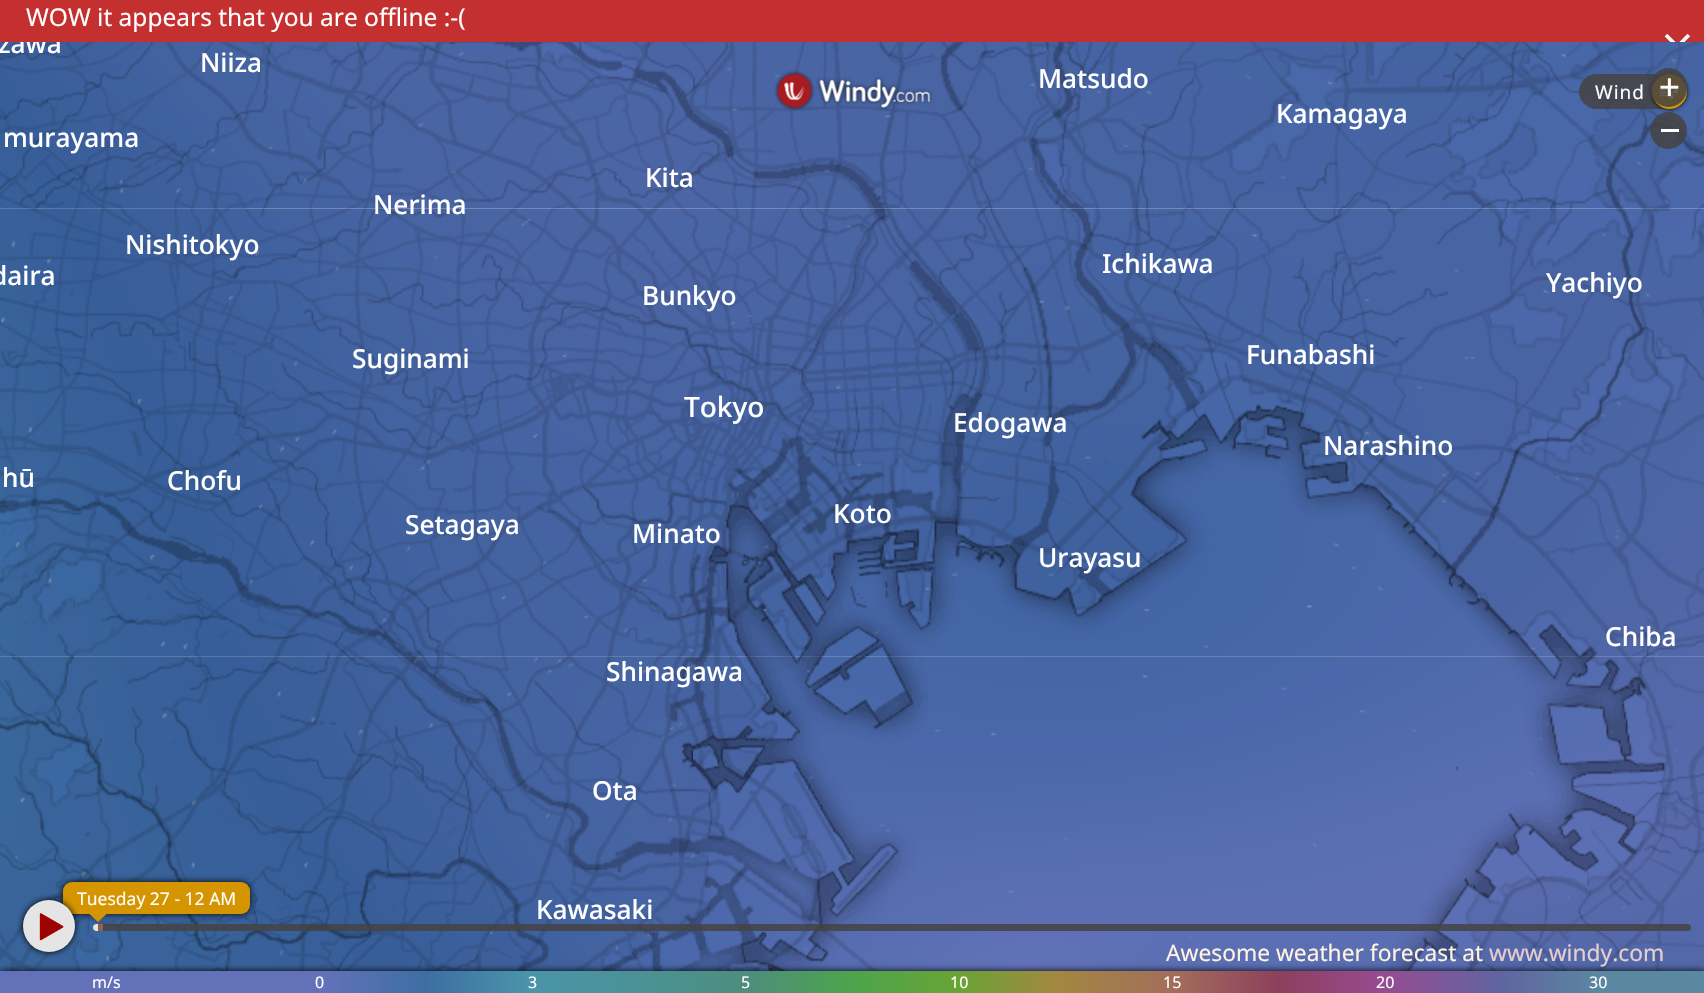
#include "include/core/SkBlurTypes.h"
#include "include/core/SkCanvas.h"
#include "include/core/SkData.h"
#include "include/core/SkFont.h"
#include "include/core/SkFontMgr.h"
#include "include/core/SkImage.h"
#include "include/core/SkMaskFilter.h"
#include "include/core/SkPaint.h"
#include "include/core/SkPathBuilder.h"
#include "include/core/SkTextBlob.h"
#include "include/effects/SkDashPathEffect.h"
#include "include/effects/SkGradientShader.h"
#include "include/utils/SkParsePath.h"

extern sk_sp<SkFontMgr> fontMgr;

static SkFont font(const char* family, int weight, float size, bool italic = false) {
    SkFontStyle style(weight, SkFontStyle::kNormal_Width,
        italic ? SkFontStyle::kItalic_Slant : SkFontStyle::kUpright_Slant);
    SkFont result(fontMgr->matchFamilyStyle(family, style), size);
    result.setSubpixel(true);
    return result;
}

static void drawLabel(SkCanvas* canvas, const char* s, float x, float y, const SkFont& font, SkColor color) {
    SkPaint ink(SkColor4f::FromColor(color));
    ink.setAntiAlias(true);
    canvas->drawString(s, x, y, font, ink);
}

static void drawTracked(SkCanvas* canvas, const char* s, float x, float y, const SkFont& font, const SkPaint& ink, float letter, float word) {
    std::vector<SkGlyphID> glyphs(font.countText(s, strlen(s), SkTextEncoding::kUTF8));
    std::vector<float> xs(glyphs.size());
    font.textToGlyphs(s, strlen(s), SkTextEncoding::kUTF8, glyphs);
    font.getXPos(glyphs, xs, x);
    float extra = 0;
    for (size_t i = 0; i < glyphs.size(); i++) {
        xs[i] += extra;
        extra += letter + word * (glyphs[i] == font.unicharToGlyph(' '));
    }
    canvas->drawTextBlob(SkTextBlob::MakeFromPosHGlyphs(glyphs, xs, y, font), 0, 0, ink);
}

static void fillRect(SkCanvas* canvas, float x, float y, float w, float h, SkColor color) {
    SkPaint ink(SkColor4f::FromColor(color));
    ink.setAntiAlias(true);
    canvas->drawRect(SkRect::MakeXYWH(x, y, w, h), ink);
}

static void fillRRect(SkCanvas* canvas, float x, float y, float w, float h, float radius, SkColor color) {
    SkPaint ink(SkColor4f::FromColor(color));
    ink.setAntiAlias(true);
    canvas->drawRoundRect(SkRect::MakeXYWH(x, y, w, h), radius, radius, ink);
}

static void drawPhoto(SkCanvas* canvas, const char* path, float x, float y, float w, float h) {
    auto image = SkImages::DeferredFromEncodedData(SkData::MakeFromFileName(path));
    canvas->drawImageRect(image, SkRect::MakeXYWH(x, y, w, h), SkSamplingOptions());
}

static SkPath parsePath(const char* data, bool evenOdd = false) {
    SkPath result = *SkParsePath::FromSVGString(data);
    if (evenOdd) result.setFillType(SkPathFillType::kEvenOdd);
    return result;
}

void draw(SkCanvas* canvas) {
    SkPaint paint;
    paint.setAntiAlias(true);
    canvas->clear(0xFFFFFFFF);
    drawPhoto(canvas, "assets/img7.png", 0, 208, 245, 449);
    drawPhoto(canvas, "assets/img2.png", 0, 42, 245, 167);
    drawPhoto(canvas, "assets/img3.png", 245, 42, 448, 166);
    drawPhoto(canvas, "assets/img4.png", 693, 42, 448, 166);
    drawPhoto(canvas, "assets/img5.png", 1141, 42, 448, 166);
    drawPhoto(canvas, "assets/img6.png", 1589, 42, 115, 166);
    drawPhoto(canvas, "assets/img8.png", 245, 208, 448, 449);
    drawPhoto(canvas, "assets/img9.png", 693, 208, 448, 449);
    drawPhoto(canvas, "assets/img10.png", 1141, 208, 448, 449);
    drawPhoto(canvas, "assets/img11.png", 1589, 208, 115, 449);
    drawPhoto(canvas, "assets/img12.png", 0, 656, 245, 315);
    drawPhoto(canvas, "assets/img13.png", 245, 656, 448, 315);
    drawPhoto(canvas, "assets/img14.png", 693, 656, 448, 315);
    drawPhoto(canvas, "assets/img15.png", 1141, 656, 448, 315);
    drawPhoto(canvas, "assets/img16.png", 1589, 656, 115, 315);
    drawPhoto(canvas, "assets/img17.png", 0, 42, 1678, 921);
    drawPhoto(canvas, "assets/img18.png", 0, 42, 245, 166);
    SkFont font1 = font("Noto Sans", 500, 26.25f);
    drawLabel(canvas, "zawa", -2, 53, font1, 0xFFFFFFFF);
    fillRect(canvas, 0, 0, 1704, 42, 0xFFC42F2F);
    SkFont font2 = font("Noto Sans", 400, 24.5f);
    drawLabel(canvas, "WOW it appears that you are offline :-(", 26, 26, font2, 0xFFFFFFFF);
    drawPhoto(canvas, "assets/img1.png", 1664, 33, 26, 9);
    drawPhoto(canvas, "assets/img19.png", 245, 42, 448, 166);
    drawLabel(canvas, "Niiza", 200, 72, font1, 0xFFFFFFFF);
    drawLabel(canvas, "murayama", 3, 147, font1, 0xFFFFFFFF);
    drawPhoto(canvas, "assets/img20.png", 693, 42, 448, 166);
    drawPhoto(canvas, "assets/img21.png", 1141, 42, 448, 166);
    drawLabel(canvas, "Matsudo", 1038, 88, font1, 0xFFFFFFFF);
    drawLabel(canvas, "Kamagaya", 1276, 123, font1, 0xFFFFFFFF);
    drawLabel(canvas, "Kita", 645, 187, font1, 0xFFFFFFFF);
    drawPhoto(canvas, "assets/img24.png", 245, 208, 448, 449);
    drawLabel(canvas, "Nerima", 373, 214, font1, 0xFFFFFFFF);
    drawPhoto(canvas, "assets/img23.png", 0, 208, 245, 448);
    drawLabel(canvas, "Nishitokyo", 125, 254, font1, 0xFFFFFFFF);
    drawLabel(canvas, "daira", -9, 285, font1, 0xFFFFFFFF);
    drawLabel(canvas, "hū", 2, 487, font1, 0xFFFFFFFF);
    drawLabel(canvas, "Chofu", 167, 490, font1, 0xFFFFFFFF);
    drawPhoto(canvas, "assets/img25.png", 693, 208, 448, 449);
    drawLabel(canvas, "Bunkyo", 642, 305, font1, 0xFFFFFFFF);
    drawLabel(canvas, "Suginami", 352, 368, font1, 0xFFFFFFFF);
    drawLabel(canvas, "Setagaya", 405, 534, font1, 0xFFFFFFFF);
    drawLabel(canvas, "Minato", 632, 543, font1, 0xFFFFFFFF);
    SkFont font3 = font("Noto Sans", 500, 28);
    drawLabel(canvas, "Tokyo", 684, 417, font3, 0xFFFFFFFF);
    drawLabel(canvas, "Edogawa", 953, 432, font1, 0xFFFFFFFF);
    drawLabel(canvas, "Koto", 833, 523, font1, 0xFFFFFFFF);
    drawLabel(canvas, "Urayasu", 1038, 567, font1, 0xFFFFFFFF);
    drawPhoto(canvas, "assets/img26.png", 1141, 208, 448, 449);
    drawLabel(canvas, "Ichikawa", 1102, 273, font1, 0xFFFFFFFF);
    drawLabel(canvas, "Funabashi", 1246, 364, font1, 0xFFFFFFFF);
    drawLabel(canvas, "Narashino", 1323, 455, font1, 0xFFFFFFFF);
    drawPhoto(canvas, "assets/img27.png", 1589, 208, 115, 448);
    drawLabel(canvas, "Yachiyo", 1546, 292, font1, 0xFFFFFFFF);
    drawLabel(canvas, "Chiba", 1605, 646, font1, 0xFFFFFFFF);
    drawPhoto(canvas, "assets/img29.png", 245, 656, 448, 315);
    drawPhoto(canvas, "assets/img30.png", 693, 656, 235, 315);
    drawLabel(canvas, "Shinagawa", 606, 681, font1, 0xFFFFFFFF);
    drawLabel(canvas, "Ota", 592, 800, font1, 0xFFFFFFFF);
    drawLabel(canvas, "Kawasaki", 536, 919, font1, 0xFFFFFFFF);
    drawPhoto(canvas, "assets/img22.png", 1589, 42, 115, 166);
    drawPhoto(canvas, "assets/img28.png", 0, 656, 245, 315);
    drawPhoto(canvas, "assets/img31.png", 1387, 656, 202, 315);
    drawPhoto(canvas, "assets/img32.png", 1589, 656, 115, 315);
    drawPhoto(canvas, "assets/img33.png", 774, 70, 41, 41);
    drawPhoto(canvas, "assets/img34.png", 816, 76, 117, 35);
    fillRRect(canvas, 1579, 74, 108, 35, 17.5f, 0xD6444141);
    SkFont font4 = font("Noto Sans", 400, 19);
    paint.setColor(0xFFFFFFFF);
    drawTracked(canvas, "Wind", 1595, 99, font4, paint, 1, 0);
    paint.setColor(0xFF000000);
    paint.setMaskFilter(SkMaskFilter::MakeBlur(kNormal_SkBlurStyle, 2));
    canvas->drawRoundRect(SkRect::MakeXYWH(1652, 74, 35, 35), 17.5f, 17.5f, paint);
    paint.setMaskFilter(nullptr);
    paint.setColor(0xFFD49500);
    canvas->drawCircle(1669.5f, 91.5f, 17.5f, paint);
    drawPhoto(canvas, "assets/img35.png", 1659, 88, 20, 12);
    fillRRect(canvas, 1650, 68, 37, 39, 18.5f, 0xD6444141);
    drawPhoto(canvas, "assets/img36.png", 1660, 78, 19, 19);
    paint.setColor(0xD6444141);
    canvas->drawCircle(1668.5f, 130.5f, 18.5f, paint);
    fillRect(canvas, 1661, 129, 18, 3, 0xFFFFFFFF);
    paint.setColor(0xFF000000);
    paint.setMaskFilter(SkMaskFilter::MakeBlur(kNormal_SkBlurStyle, 3.5f));
    canvas->drawRoundRect(SkRect::MakeXYWH(63, 882, 187, 32), 9, 9, paint);
    paint.setMaskFilter(nullptr);
    fillRRect(canvas, 63, 882, 187, 32, 9, 0xFFD49500);
    paint.setMaskFilter(SkMaskFilter::MakeBlur(kNormal_SkBlurStyle, 3.5f));
    canvas->drawRoundRect(SkRect::MakeXYWH(23, 900, 52, 52), 26, 26, paint);
    paint.setMaskFilter(nullptr);
    paint.setColor(0xFFE5E5E5);
    canvas->drawCircle(49, 926, 26, paint);
    drawPhoto(canvas, "assets/img37.png", 39, 913, 25, 28);
    SkFont font5 = font("Noto Sans", 400, 17.5f);
    drawLabel(canvas, "Tuesday 27 - 12 AM", 77, 905, font5, 0xFFFFFFFF);
    paint.setColor(0xFFD49500);
    canvas->drawPath(parsePath("M89 913.5H107L98 922Z"), paint);
    fillRRect(canvas, 93, 924, 1598, 7, 3.5f, 0xD6444141);
    paint.setColor(0xFFE5E5E5);
    canvas->drawPath(parsePath("M96.5 924H98V931H96.5C94.5 931 93 929.5 93 927.5C93 925.5 94.5 924 96.5 924Z"), paint);
    fillRect(canvas, 98, 924, 5, 7, 0xFF946051);
    paint.setColor(0xFF000000);
    paint.setMaskFilter(SkMaskFilter::MakeBlur(kNormal_SkBlurStyle, 3.5f));
    canvas->drawRect(SkRect::MakeXYWH(0, 971, 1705, 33), paint);
    paint.setMaskFilter(nullptr);
    SkFont font6 = font("Noto Sans", 400, 22.75f);
    drawLabel(canvas, "Awesome weather forecast at", 1166, 961, font6, 0xFFFFF3E1);
    drawLabel(canvas, "www.windy.com", 1489, 961, font6, 0xFFE6CECE);
    {
        const SkColor colors[] = {0xFF6271B8, 0xFF6271B8, 0xFF3D6EA3, 0xFF4A94AA, 0xFF4A9294, 0xFF4D8E7C, 0xFF4CA44C, 0xFF67A436, 0xFFA28740, 0xFFA26D5C, 0xFF8D3F5C, 0xFF974B91, 0xFF5F64A0, 0xFF5B88A1, 0xFF5B88A1};
        const float stops[] = {0, 0.19f, 0.25f, 0.31f, 0.38f, 0.44f, 0.5f, 0.56f, 0.62f, 0.69f, 0.75f, 0.81f, 0.88f, 0.94f, 1};
        const SkPoint ends[] = {{0, 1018}, {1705, 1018}};
        paint.setShader(SkGradientShader::MakeLinear(ends, colors, stops, 15, SkTileMode::kClamp));
        paint.setAlpha(255);
    }
    canvas->drawRect(SkRect::MakeXYWH(0, 971, 1704, 22), paint);
    SkFont font7 = font("Noto Sans", 400, 16);
    drawLabel(canvas, "m/s", 92, 988, font7, 0xFFFFFFFF);
    drawLabel(canvas, "0", 315, 988, font7, 0xFFFFFFFF);
    drawLabel(canvas, "3", 528, 988, font7, 0xFFFFFFFF);
    drawLabel(canvas, "5", 741, 988, font7, 0xFFFFFFFF);
    drawLabel(canvas, "10", 950, 988, font7, 0xFFFFFFFF);
    drawLabel(canvas, "15", 1163, 988, font7, 0xFFFFFFFF);
    drawLabel(canvas, "20", 1376, 988, font7, 0xFFFFFFFF);
    drawLabel(canvas, "30", 1589, 988, font7, 0xFFFFFFFF);
}
